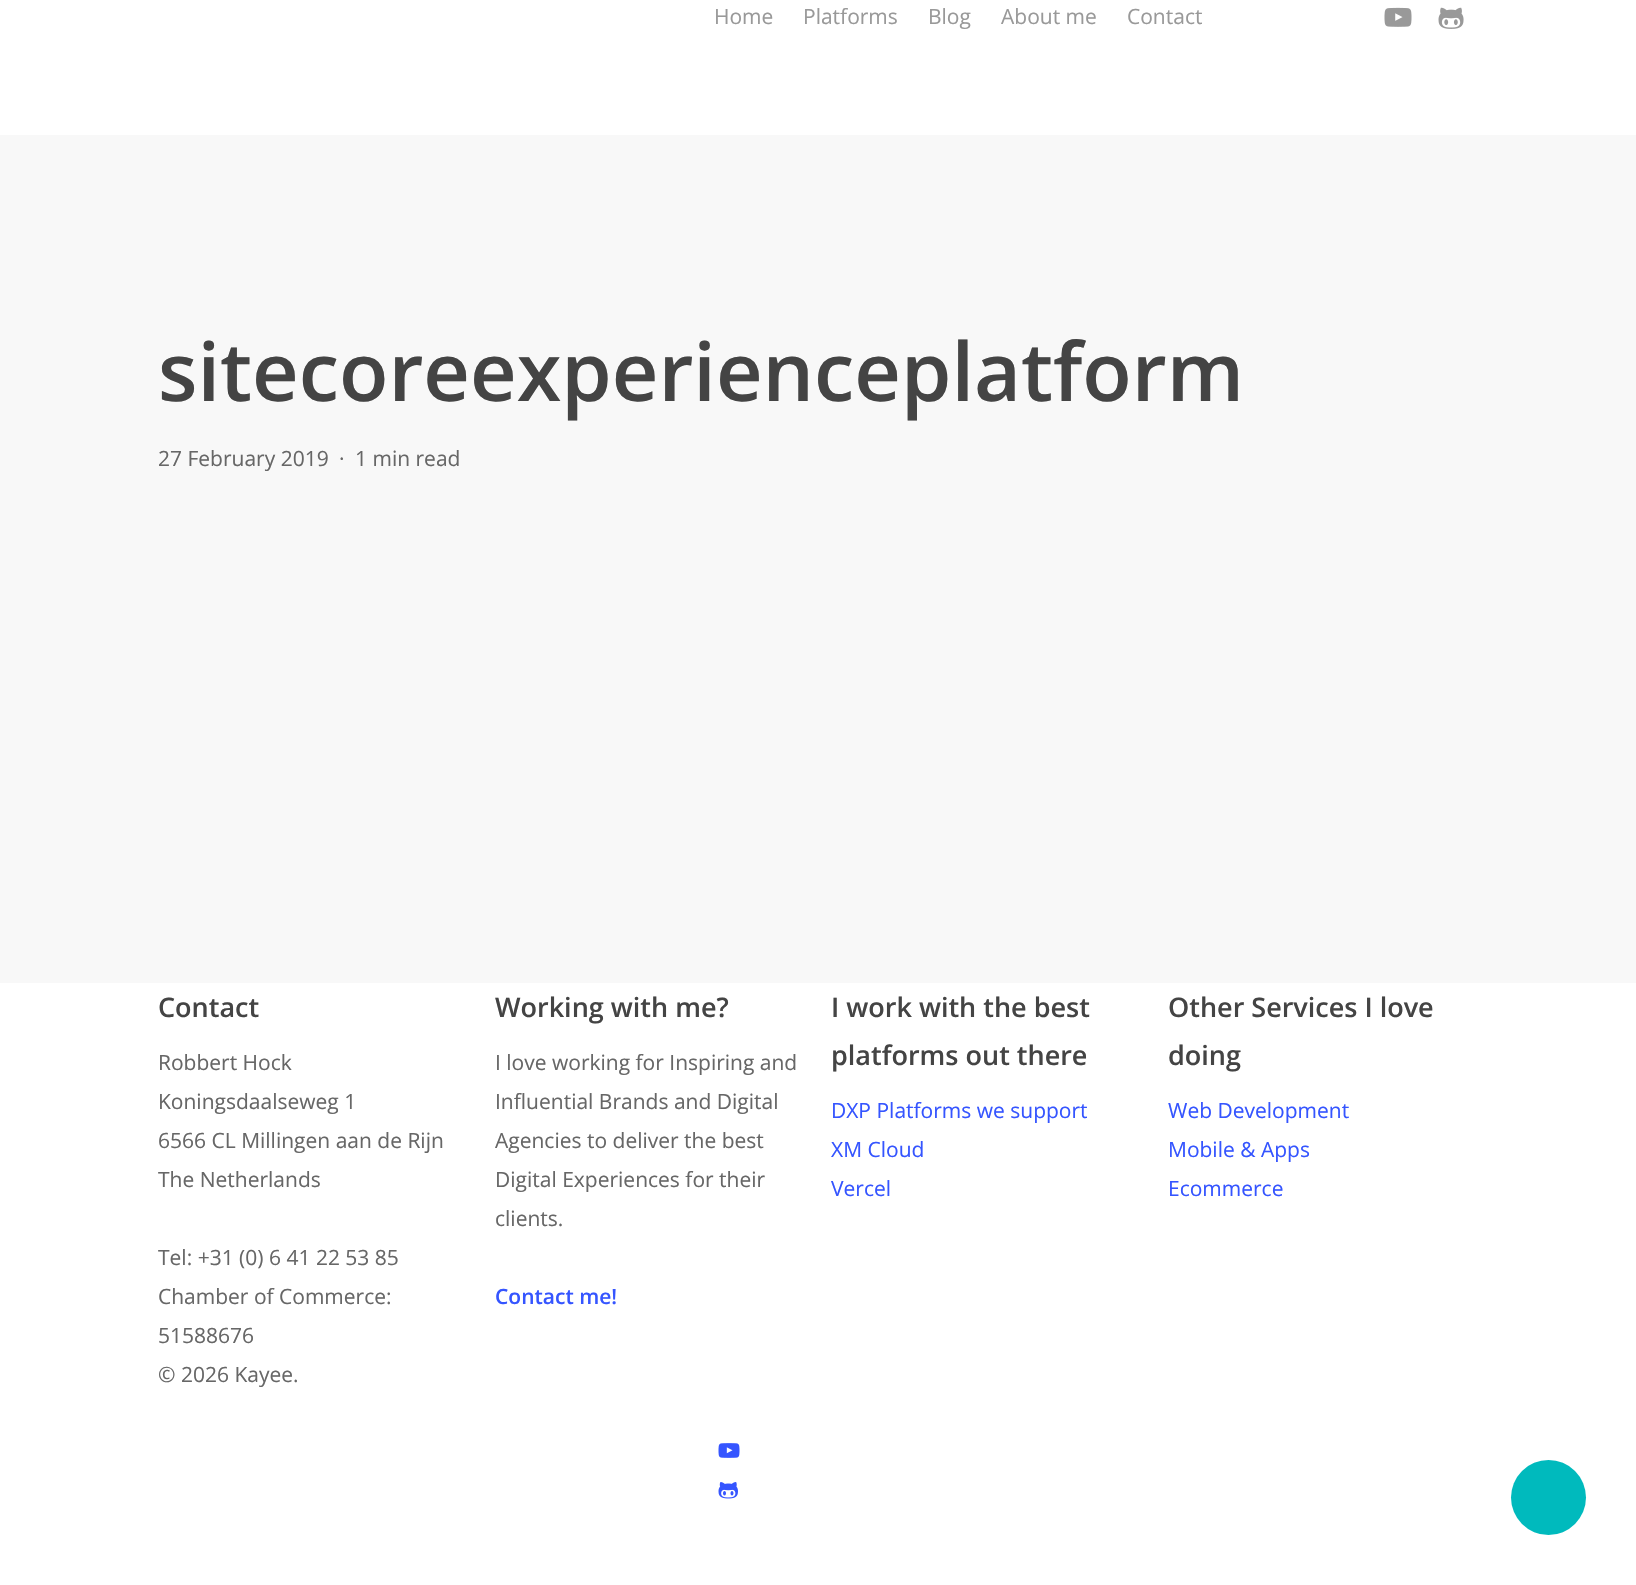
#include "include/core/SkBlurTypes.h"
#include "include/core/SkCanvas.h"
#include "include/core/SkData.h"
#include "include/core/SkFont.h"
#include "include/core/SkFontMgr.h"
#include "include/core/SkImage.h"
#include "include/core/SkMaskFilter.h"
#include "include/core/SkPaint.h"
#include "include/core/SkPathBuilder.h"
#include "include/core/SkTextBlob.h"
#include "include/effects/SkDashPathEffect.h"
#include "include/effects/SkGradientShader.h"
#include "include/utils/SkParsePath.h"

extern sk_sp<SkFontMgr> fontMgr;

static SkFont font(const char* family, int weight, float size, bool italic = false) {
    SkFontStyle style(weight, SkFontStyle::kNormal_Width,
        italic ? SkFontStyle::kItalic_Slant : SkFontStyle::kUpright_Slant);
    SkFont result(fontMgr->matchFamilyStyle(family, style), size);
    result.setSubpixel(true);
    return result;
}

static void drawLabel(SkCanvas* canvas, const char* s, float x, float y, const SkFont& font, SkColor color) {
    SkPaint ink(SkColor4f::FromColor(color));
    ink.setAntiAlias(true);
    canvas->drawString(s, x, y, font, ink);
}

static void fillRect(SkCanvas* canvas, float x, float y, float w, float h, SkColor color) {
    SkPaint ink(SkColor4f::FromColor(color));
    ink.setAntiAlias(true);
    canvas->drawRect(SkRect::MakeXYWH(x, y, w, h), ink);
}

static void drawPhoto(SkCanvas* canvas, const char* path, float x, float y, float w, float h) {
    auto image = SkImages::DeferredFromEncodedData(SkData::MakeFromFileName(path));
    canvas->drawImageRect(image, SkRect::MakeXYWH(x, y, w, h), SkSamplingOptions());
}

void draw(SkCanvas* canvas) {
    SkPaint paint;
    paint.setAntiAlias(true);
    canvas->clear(0xFFFFFFFF);
    SkFont font1 = font("Open Sans", 400, 21);
    drawLabel(canvas, "Home", 714, 24, font1, 0xFF999999);
    drawLabel(canvas, "Platforms", 803, 24, font1, 0xFF999999);
    drawLabel(canvas, "Blog", 928, 24, font1, 0xFF999999);
    drawLabel(canvas, "About me", 1001, 24, font1, 0xFF999999);
    drawLabel(canvas, "Contact", 1127, 24, font1, 0xFF999999);
    drawPhoto(canvas, "assets/img1.png", 1384, 7, 28, 20);
    drawPhoto(canvas, "assets/img2.png", 1438, 7, 26, 22);
    fillRect(canvas, 0, 135, 1636, 848, 0xFFF8F8F8);
    SkFont font2 = font("Open Sans", 600, 81);
    drawLabel(canvas, "sitecoreexperienceplatform", 158, 401, font2, 0xFF444444);
    drawLabel(canvas, "27 February 2019", 158, 466, font1, 0xFF676767);
    drawLabel(canvas, "·", 339, 466, font1, 0xFF676767);
    drawLabel(canvas, "1 min read", 355, 466, font1, 0xFF676767);
    SkFont font3 = font("Open Sans", 600, 27);
    drawLabel(canvas, "Contact", 158, 1017, font3, 0xFF444444);
    drawLabel(canvas, "Robbert Hock", 158, 1070, font1, 0xFF676767);
    drawLabel(canvas, "Koningsdaalseweg 1", 158, 1109, font1, 0xFF676767);
    drawLabel(canvas, "6566 CL Millingen aan de Rijn", 158, 1148, font1, 0xFF676767);
    drawLabel(canvas, "The Netherlands", 158, 1187, font1, 0xFF676767);
    drawLabel(canvas, "Tel: +31 (0) 6 41 22 53 85", 158, 1265, font1, 0xFF676767);
    drawLabel(canvas, "Chamber of Commerce:", 158, 1304, font1, 0xFF676767);
    drawLabel(canvas, "51588676", 158, 1343, font1, 0xFF676767);
    drawLabel(canvas, "Working with me?", 495, 1017, font3, 0xFF444444);
    drawLabel(canvas, "I love working for Inspiring and", 495, 1070, font1, 0xFF676767);
    drawLabel(canvas, "Influential Brands and Digital", 495, 1109, font1, 0xFF676767);
    drawLabel(canvas, "Agencies to deliver the best", 495, 1148, font1, 0xFF676767);
    drawLabel(canvas, "Digital Experiences for their", 495, 1187, font1, 0xFF676767);
    drawLabel(canvas, "clients.", 495, 1226, font1, 0xFF676767);
    SkFont font4 = font("Open Sans", 600, 21);
    drawLabel(canvas, "Contact me!", 495, 1304, font4, 0xFF3555FF);
    drawLabel(canvas, "I work with the best", 831, 1017, font3, 0xFF444444);
    drawLabel(canvas, "platforms out there", 831, 1065, font3, 0xFF444444);
    drawLabel(canvas, "DXP Platforms we support", 831, 1118, font1, 0xFF3555FF);
    drawLabel(canvas, "XM Cloud", 831, 1157, font1, 0xFF3555FF);
    drawLabel(canvas, "Vercel", 831, 1196, font1, 0xFF3555FF);
    drawLabel(canvas, "Other Services I love", 1168, 1017, font3, 0xFF444444);
    drawLabel(canvas, "doing", 1168, 1065, font3, 0xFF444444);
    drawLabel(canvas, "Web Development", 1168, 1118, font1, 0xFF3555FF);
    drawLabel(canvas, "Mobile & Apps", 1168, 1157, font1, 0xFF3555FF);
    drawLabel(canvas, "Ecommerce", 1168, 1196, font1, 0xFF3555FF);
    drawLabel(canvas, "© 2026 Kayee.", 158, 1382, font1, 0xFF676767);
    drawPhoto(canvas, "assets/img3.png", 718, 1443, 22, 15);
    drawPhoto(canvas, "assets/img4.png", 718, 1482, 20, 17);
    paint.setColor(0xFF00BABD);
    canvas->drawCircle(1548.5f, 1497.5f, 37.5f, paint);
}
